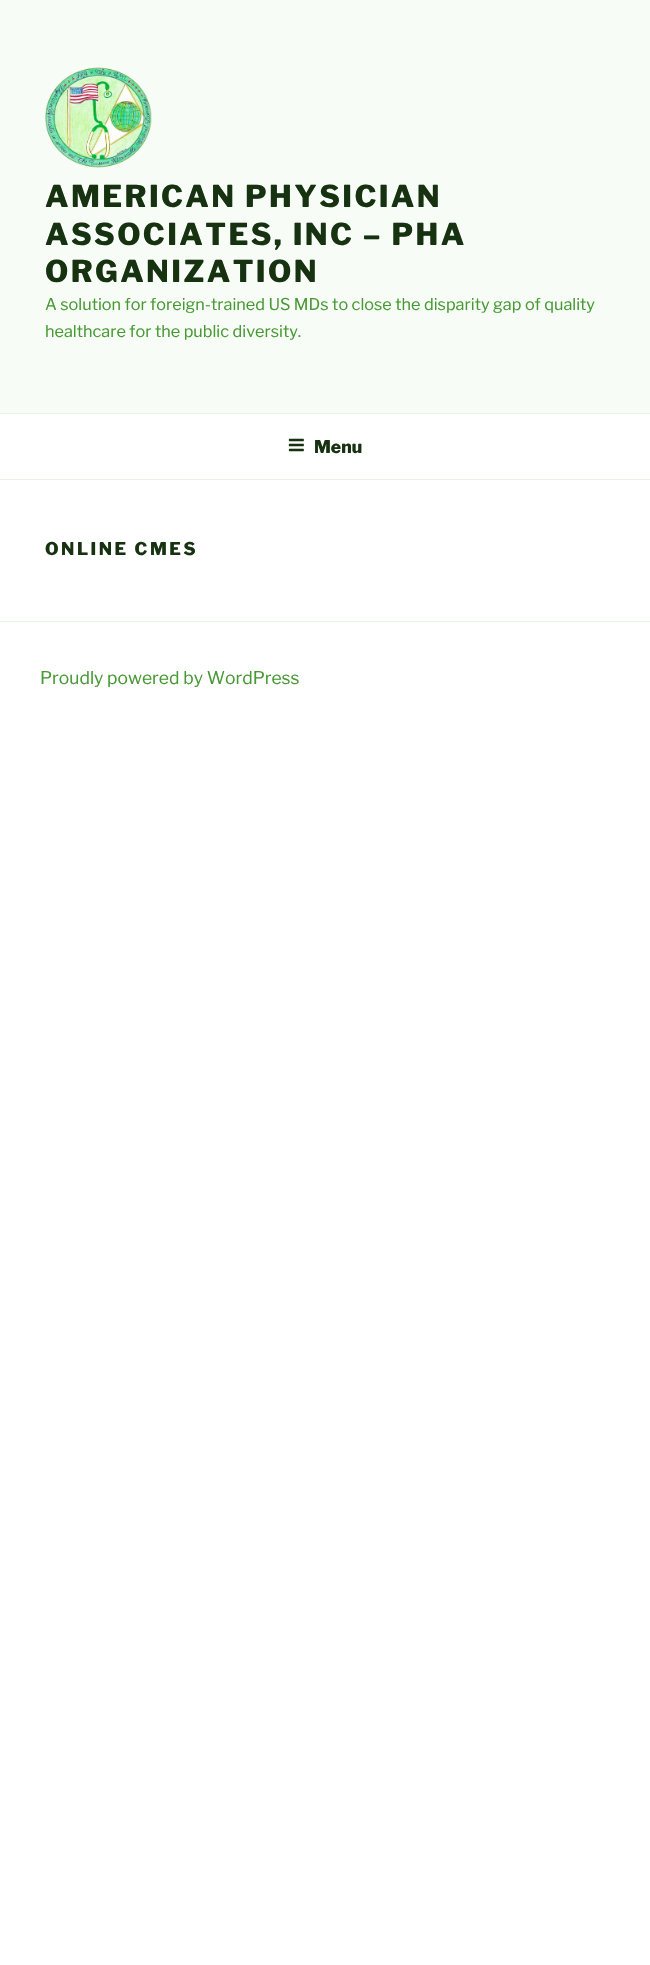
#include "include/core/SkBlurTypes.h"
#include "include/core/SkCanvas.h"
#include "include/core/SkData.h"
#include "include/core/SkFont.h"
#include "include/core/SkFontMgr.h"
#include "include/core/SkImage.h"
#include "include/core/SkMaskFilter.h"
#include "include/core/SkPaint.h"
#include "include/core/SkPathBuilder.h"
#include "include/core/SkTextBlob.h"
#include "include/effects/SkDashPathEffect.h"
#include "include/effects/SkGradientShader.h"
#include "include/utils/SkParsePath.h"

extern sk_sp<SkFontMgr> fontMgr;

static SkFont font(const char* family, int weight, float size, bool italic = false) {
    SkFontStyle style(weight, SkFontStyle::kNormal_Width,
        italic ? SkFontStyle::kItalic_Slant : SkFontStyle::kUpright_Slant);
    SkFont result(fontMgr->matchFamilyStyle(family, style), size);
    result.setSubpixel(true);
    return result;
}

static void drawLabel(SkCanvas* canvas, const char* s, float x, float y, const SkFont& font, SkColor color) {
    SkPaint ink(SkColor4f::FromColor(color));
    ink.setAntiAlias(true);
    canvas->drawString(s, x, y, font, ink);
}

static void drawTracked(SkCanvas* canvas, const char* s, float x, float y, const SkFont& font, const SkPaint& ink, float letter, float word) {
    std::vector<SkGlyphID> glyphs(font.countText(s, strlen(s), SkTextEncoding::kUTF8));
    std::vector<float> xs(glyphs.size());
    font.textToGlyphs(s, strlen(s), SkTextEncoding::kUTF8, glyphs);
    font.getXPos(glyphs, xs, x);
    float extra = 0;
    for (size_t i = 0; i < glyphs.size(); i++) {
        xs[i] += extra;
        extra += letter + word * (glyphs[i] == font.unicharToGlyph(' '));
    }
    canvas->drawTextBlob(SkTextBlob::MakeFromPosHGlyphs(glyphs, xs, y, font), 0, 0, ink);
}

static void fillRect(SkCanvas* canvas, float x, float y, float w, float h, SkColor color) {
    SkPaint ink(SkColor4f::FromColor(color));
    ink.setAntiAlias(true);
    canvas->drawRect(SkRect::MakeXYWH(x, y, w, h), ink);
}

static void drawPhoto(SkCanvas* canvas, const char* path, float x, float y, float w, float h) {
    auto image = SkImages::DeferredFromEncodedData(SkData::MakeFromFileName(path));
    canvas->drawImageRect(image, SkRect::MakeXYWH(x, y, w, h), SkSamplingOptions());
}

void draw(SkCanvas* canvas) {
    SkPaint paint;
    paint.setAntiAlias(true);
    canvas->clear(0xFFFFFFFF);
    fillRect(canvas, 0, 0, 650, 413, 0xFFF8FCF7);
    drawPhoto(canvas, "assets/img1.png", 45, 67, 107, 101);
    SkFont font1 = font("Libre Franklin", 800, 30);
    paint.setColor(0xFF173211);
    drawTracked(canvas, "AMERICAN PHYSICIAN", 45, 207, font1, paint, 2.4f, 0);
    drawTracked(canvas, "ASSOCIATES, INC – PHA", 45, 245, font1, paint, 2.4f, 0);
    drawTracked(canvas, "ORGANIZATION", 45, 282, font1, paint, 2.4f, 0);
    SkFont font2 = font("Libre Franklin", 400, 16.25f);
    drawLabel(canvas, "A solution for foreign-trained US MDs to close the disparity gap of quality", 45, 310, font2, 0xFF469933);
    drawLabel(canvas, "healthcare for the public diversity.", 45, 337, font2, 0xFF469933);
    fillRect(canvas, 0, 413, 650, 1, 0xFFE7F6E4);
    fillRect(canvas, 0, 479, 650, 1, 0xFFE7F6E4);
    drawPhoto(canvas, "assets/img2.png", 288, 438, 16, 14);
    SkFont font3 = font("Libre Franklin", 800, 17.5f);
    drawLabel(canvas, "Menu", 314, 453, font3, 0xFF173211);
    drawTracked(canvas, "ONLINE CMES", 45, 555, font3, paint, 2.5f, 0);
    fillRect(canvas, 0, 621, 650, 1, 0xFFE7F6E4);
    SkFont font4 = font("Libre Franklin", 400, 17.5f);
    drawLabel(canvas, "Proudly powered by WordPress", 40, 684, font4, 0xFF469933);
}
